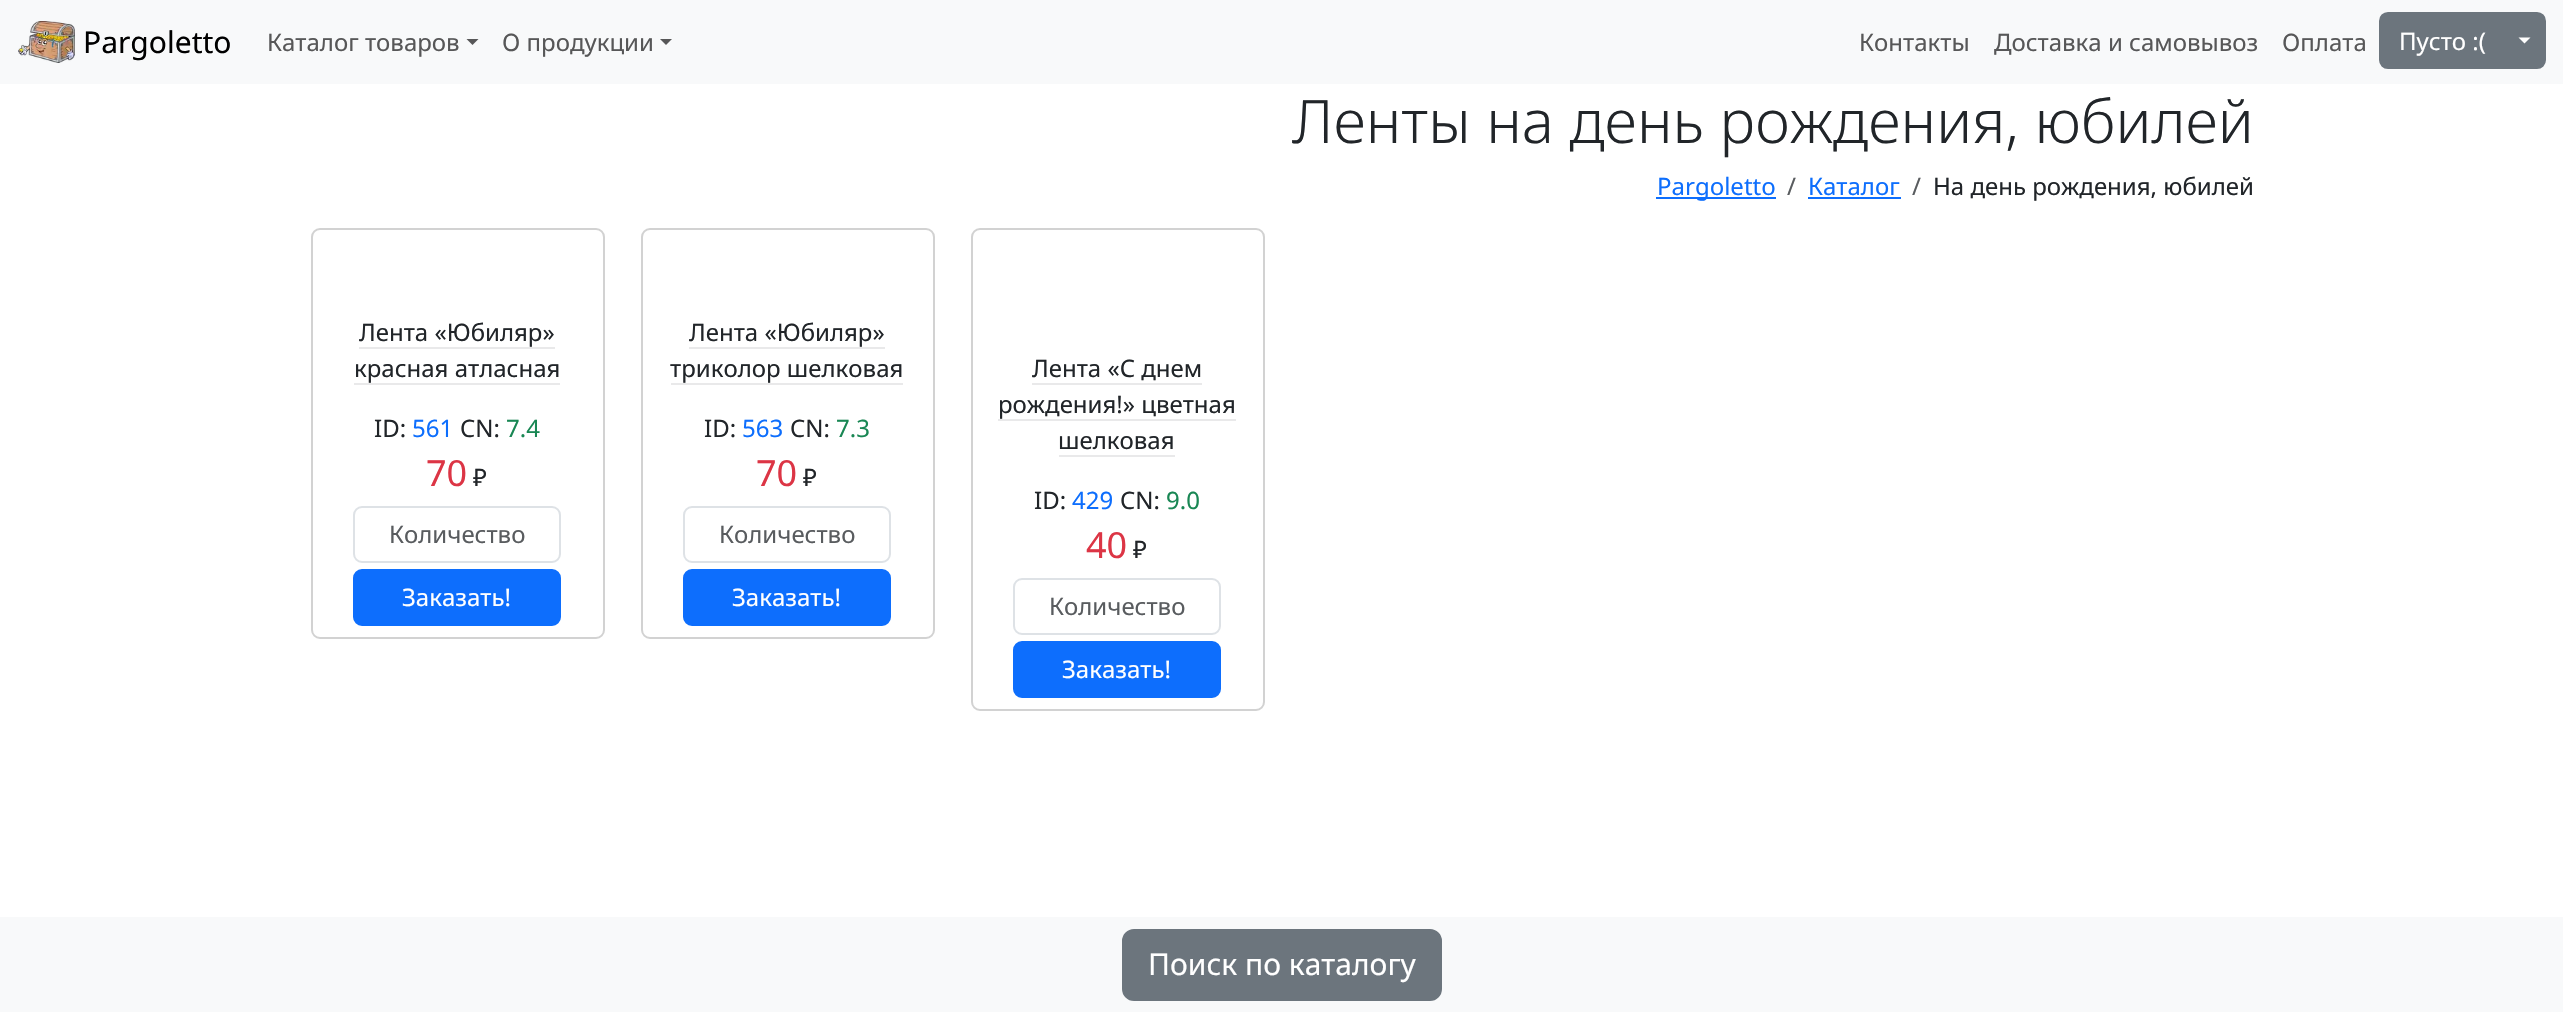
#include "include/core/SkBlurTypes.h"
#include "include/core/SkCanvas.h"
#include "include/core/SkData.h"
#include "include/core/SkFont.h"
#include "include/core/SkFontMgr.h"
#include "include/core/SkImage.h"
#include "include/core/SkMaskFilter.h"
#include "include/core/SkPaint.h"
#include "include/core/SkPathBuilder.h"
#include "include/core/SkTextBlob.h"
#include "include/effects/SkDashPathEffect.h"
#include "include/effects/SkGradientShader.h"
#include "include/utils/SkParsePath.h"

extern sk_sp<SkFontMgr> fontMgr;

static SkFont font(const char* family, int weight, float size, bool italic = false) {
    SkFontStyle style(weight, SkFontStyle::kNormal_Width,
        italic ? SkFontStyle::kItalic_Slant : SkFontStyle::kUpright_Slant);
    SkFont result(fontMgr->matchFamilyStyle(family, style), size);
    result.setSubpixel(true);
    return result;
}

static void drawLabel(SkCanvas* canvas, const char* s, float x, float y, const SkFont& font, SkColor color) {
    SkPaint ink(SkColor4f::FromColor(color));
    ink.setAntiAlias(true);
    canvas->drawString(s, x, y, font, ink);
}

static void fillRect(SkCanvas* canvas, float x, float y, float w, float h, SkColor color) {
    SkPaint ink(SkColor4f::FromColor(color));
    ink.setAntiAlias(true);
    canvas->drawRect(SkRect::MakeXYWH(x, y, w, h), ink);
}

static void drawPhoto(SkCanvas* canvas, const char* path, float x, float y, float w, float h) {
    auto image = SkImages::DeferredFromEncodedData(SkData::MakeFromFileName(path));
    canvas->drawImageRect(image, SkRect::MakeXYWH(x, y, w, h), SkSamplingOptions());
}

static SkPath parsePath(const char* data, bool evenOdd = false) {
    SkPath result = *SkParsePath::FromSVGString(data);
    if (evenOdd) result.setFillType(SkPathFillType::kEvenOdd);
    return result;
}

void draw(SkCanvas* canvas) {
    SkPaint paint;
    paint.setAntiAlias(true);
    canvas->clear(0xFFFFFFFF);
    fillRect(canvas, 0, 0, 2563, 84, 0xFFF8F9FA);
    drawPhoto(canvas, "assets/img1.png", 18, 21, 57, 42);
    SkFont font1 = font("Noto Sans", 400, 30);
    drawLabel(canvas, "Pargoletto", 83, 53, font1, 0xFF000000);
    SkFont font2 = font("Noto Sans", 400, 24);
    drawLabel(canvas, "Каталог товаров", 267, 51, font2, 0xFF575758);
    paint.setColor(0xFF575758);
    canvas->drawPath(parsePath("M466.5 39H478.5L472.5 45Z"), paint);
    drawLabel(canvas, "О продукции", 502, 51, font2, 0xFF575758);
    canvas->drawPath(parsePath("M660 39H672L666 45Z"), paint);
    drawLabel(canvas, "Контакты", 1859, 51, font2, 0xFF575758);
    drawLabel(canvas, "Доставка и самовывоз", 1994, 51, font2, 0xFF575758);
    drawLabel(canvas, "Оплата", 2282, 51, font2, 0xFF575758);
    paint.setColor(0xFF6C757D);
    canvas->drawPath(parsePath("M2388 13H2504V68H2388C2383.5 68 2380 64.5 2380 60V21C2380 16.5 2383.5 13 2388 13Z"), paint);
    paint.setStroke(true);
    paint.setStrokeWidth(2);
    canvas->drawPath(parsePath("M2388 13H2504V68H2388C2383.5 68 2380 64.5 2380 60V21C2380 16.5 2383.5 13 2388 13Z"), paint);
    drawLabel(canvas, "Пусто :(", 2399, 50, font2, 0xFFFFFFFF);
    paint.setStroke(false);
    canvas->drawPath(parsePath("M2505 13H2537C2541.5 13 2545 16.5 2545 21V60C2545 64.5 2541.5 68 2537 68H2505Z"), paint);
    paint.setStroke(true);
    canvas->drawPath(parsePath("M2505 13H2537C2541.5 13 2545 16.5 2545 21V60C2545 64.5 2541.5 68 2537 68H2505Z"), paint);
    paint.setStroke(false);
    paint.setColor(0xFFFFFFFF);
    canvas->drawPath(parsePath("M2518.5 37.5H2530.5L2524.5 43.5Z"), paint);
    SkFont font3 = font("Noto Sans", 300, 60);
    drawLabel(canvas, "Ленты на день рождения, юбилей", 1292, 143, font3, 0xFF212529);
    fillRect(canvas, 1656, 197, 120, 2, 0xFF0D6EFD);
    drawLabel(canvas, "Pargoletto", 1657, 195, font2, 0xFF0D6EFD);
    drawLabel(canvas, "/", 1787, 195, font2, 0xFF595C5F);
    drawLabel(canvas, "Каталог", 1808, 195, font2, 0xFF0D6EFD);
    fillRect(canvas, 1808, 197, 93, 2, 0xFF0D6EFD);
    drawLabel(canvas, "/", 1912, 195, font2, 0xFF595C5F);
    drawLabel(canvas, "На день рождения, юбилей", 1933, 195, font2, 0xFF212529);
    paint.setStroke(true);
    paint.setColor(0xFFD2D2D2);
    canvas->drawRoundRect(SkRect::MakeXYWH(312, 229, 292, 409), 8, 8, paint);
    drawLabel(canvas, "Лента «Юбиляр»", 359, 341, font2, 0xFF212529);
    fillRect(canvas, 359, 347, 196, 2, 0xFFE9E9EA);
    drawLabel(canvas, "красная атласная", 354, 377, font2, 0xFF212529);
    fillRect(canvas, 354, 383, 206, 2, 0xFFE9E9EA);
    drawLabel(canvas, "ID:", 374, 437, font2, 0xFF212529);
    drawLabel(canvas, "561", 412, 437, font2, 0xFF0D6EFD);
    drawLabel(canvas, "CN:", 460, 437, font2, 0xFF212529);
    drawLabel(canvas, "7.4", 506, 437, font2, 0xFF198754);
    SkFont font4 = font("Noto Sans", 400, 36);
    drawLabel(canvas, "70", 426, 486, font4, 0xFFDC3545);
    drawLabel(canvas, "₽", 473, 486, font2, 0xFF212529);
    paint.setColor(0xFFDEE2E6);
    canvas->drawRoundRect(SkRect::MakeXYWH(354, 507, 206, 55), 8, 8, paint);
    drawLabel(canvas, "Количество", 389, 543, font2, 0xFF595C5F);
    paint.setStroke(false);
    paint.setColor(0xFF0D6EFD);
    canvas->drawRoundRect(SkRect::MakeXYWH(354, 570, 206, 55), 8, 8, paint);
    paint.setStroke(true);
    canvas->drawRoundRect(SkRect::MakeXYWH(354, 570, 206, 55), 8, 8, paint);
    drawLabel(canvas, "Заказать!", 402, 606, font2, 0xFFFFFFFF);
    paint.setColor(0xFFD2D2D2);
    canvas->drawRoundRect(SkRect::MakeXYWH(642, 229, 292, 409), 8, 8, paint);
    drawLabel(canvas, "Лента «Юбиляр»", 689, 341, font2, 0xFF212529);
    fillRect(canvas, 689, 347, 196, 2, 0xFFE9E9EA);
    drawLabel(canvas, "триколор шелковая", 670, 377, font2, 0xFF212529);
    fillRect(canvas, 671, 383, 232, 2, 0xFFE9E9EA);
    drawLabel(canvas, "ID:", 704, 437, font2, 0xFF212529);
    drawLabel(canvas, "563", 742, 437, font2, 0xFF0D6EFD);
    drawLabel(canvas, "CN:", 790, 437, font2, 0xFF212529);
    drawLabel(canvas, "7.3", 836, 437, font2, 0xFF198754);
    drawLabel(canvas, "70", 756, 486, font4, 0xFFDC3545);
    drawLabel(canvas, "₽", 803, 486, font2, 0xFF212529);
    paint.setColor(0xFFDEE2E6);
    canvas->drawRoundRect(SkRect::MakeXYWH(684, 507, 206, 55), 8, 8, paint);
    drawLabel(canvas, "Количество", 719, 543, font2, 0xFF595C5F);
    paint.setStroke(false);
    paint.setColor(0xFF0D6EFD);
    canvas->drawRoundRect(SkRect::MakeXYWH(684, 570, 206, 55), 8, 8, paint);
    paint.setStroke(true);
    canvas->drawRoundRect(SkRect::MakeXYWH(684, 570, 206, 55), 8, 8, paint);
    drawLabel(canvas, "Заказать!", 732, 606, font2, 0xFFFFFFFF);
    paint.setColor(0xFFD2D2D2);
    canvas->drawRoundRect(SkRect::MakeXYWH(972, 229, 292, 481), 8, 8, paint);
    drawLabel(canvas, "Лента «С днем", 1032, 377, font2, 0xFF212529);
    fillRect(canvas, 1032, 383, 170, 2, 0xFFE9E9EA);
    drawLabel(canvas, "рождения!» цветная", 998, 413, font2, 0xFF212529);
    fillRect(canvas, 998, 419, 238, 2, 0xFFE9E9EA);
    drawLabel(canvas, "шелковая", 1058, 449, font2, 0xFF212529);
    fillRect(canvas, 1059, 455, 116, 2, 0xFFE9E9EA);
    drawLabel(canvas, "ID:", 1034, 509, font2, 0xFF212529);
    drawLabel(canvas, "429", 1072, 509, font2, 0xFF0D6EFD);
    drawLabel(canvas, "CN:", 1120, 509, font2, 0xFF212529);
    drawLabel(canvas, "9.0", 1166, 509, font2, 0xFF198754);
    drawLabel(canvas, "40", 1086, 558, font4, 0xFFDC3545);
    drawLabel(canvas, "₽", 1133, 558, font2, 0xFF212529);
    paint.setColor(0xFFDEE2E6);
    canvas->drawRoundRect(SkRect::MakeXYWH(1014, 579, 206, 55), 8, 8, paint);
    drawLabel(canvas, "Количество", 1049, 615, font2, 0xFF595C5F);
    paint.setStroke(false);
    paint.setColor(0xFF0D6EFD);
    canvas->drawRoundRect(SkRect::MakeXYWH(1014, 642, 206, 55), 8, 8, paint);
    paint.setStroke(true);
    canvas->drawRoundRect(SkRect::MakeXYWH(1014, 642, 206, 55), 8, 8, paint);
    drawLabel(canvas, "Заказать!", 1062, 678, font2, 0xFFFFFFFF);
    fillRect(canvas, 0, 917, 2563, 95, 0xFFF8F9FA);
    paint.setStroke(false);
    paint.setColor(0xFF6C757D);
    canvas->drawRoundRect(SkRect::MakeXYWH(1123, 930, 318, 70), 11, 11, paint);
    paint.setStroke(true);
    canvas->drawRoundRect(SkRect::MakeXYWH(1123, 930, 318, 70), 11, 11, paint);
    drawLabel(canvas, "Поиск по каталогу", 1148, 975, font1, 0xFFFFFFFF);
}
